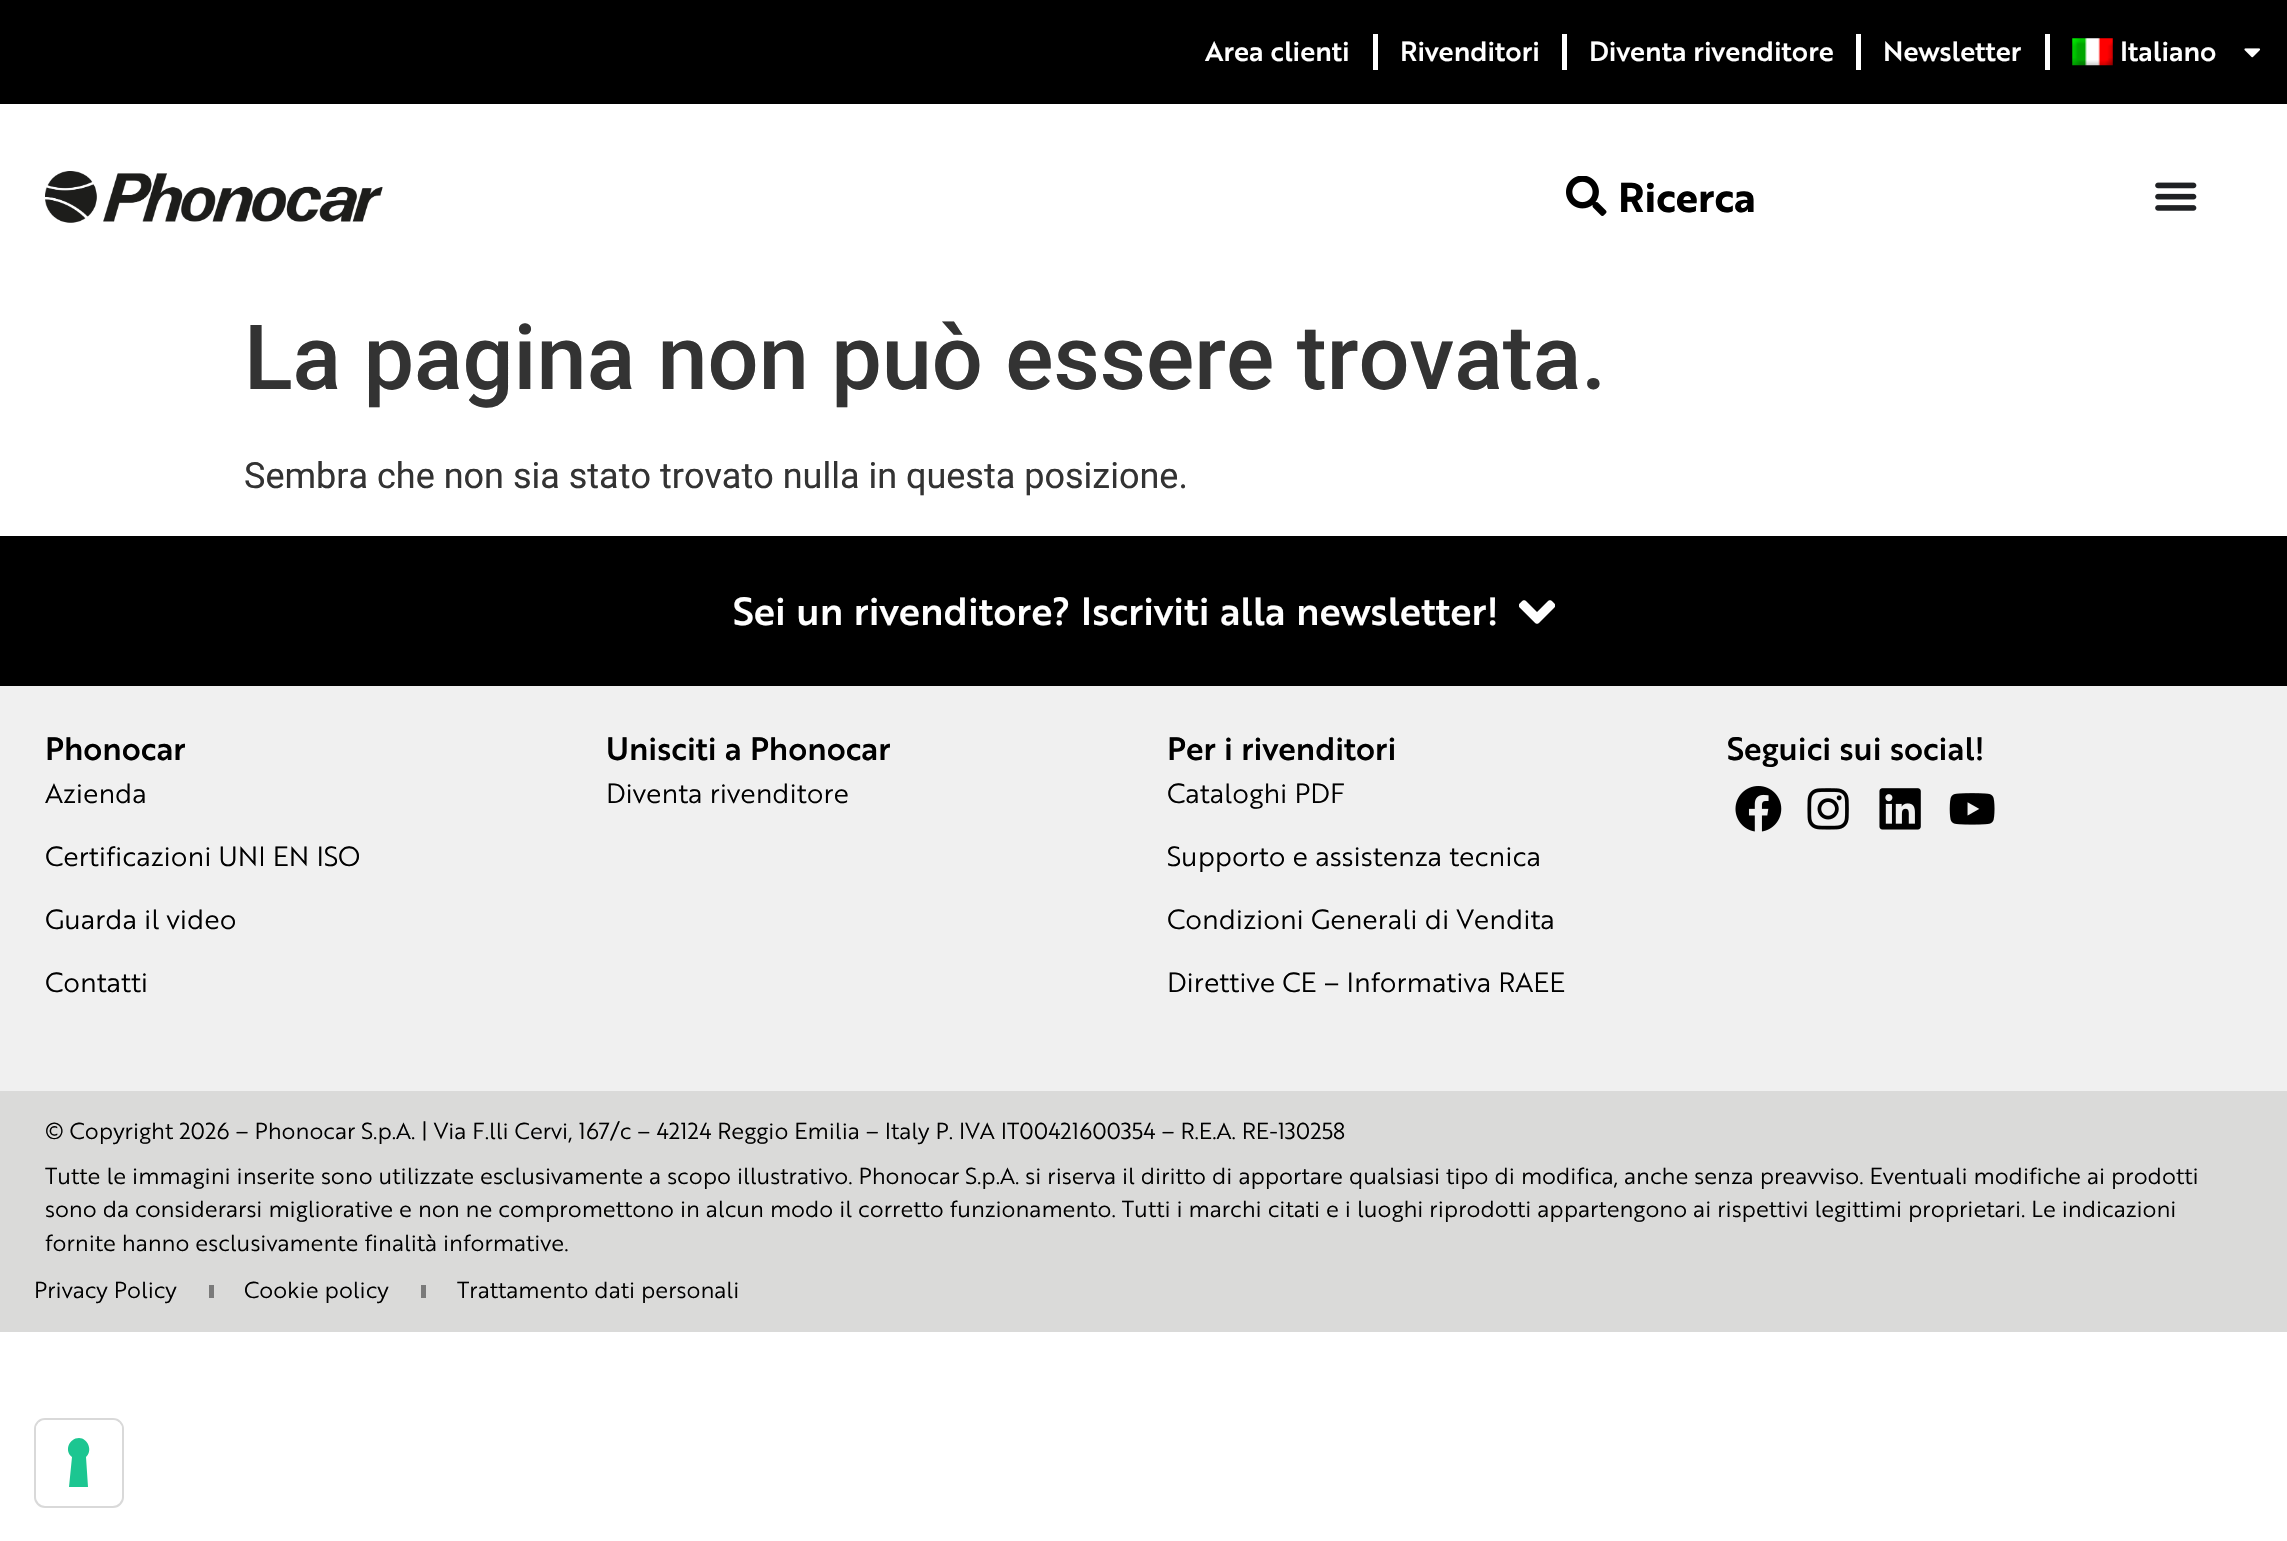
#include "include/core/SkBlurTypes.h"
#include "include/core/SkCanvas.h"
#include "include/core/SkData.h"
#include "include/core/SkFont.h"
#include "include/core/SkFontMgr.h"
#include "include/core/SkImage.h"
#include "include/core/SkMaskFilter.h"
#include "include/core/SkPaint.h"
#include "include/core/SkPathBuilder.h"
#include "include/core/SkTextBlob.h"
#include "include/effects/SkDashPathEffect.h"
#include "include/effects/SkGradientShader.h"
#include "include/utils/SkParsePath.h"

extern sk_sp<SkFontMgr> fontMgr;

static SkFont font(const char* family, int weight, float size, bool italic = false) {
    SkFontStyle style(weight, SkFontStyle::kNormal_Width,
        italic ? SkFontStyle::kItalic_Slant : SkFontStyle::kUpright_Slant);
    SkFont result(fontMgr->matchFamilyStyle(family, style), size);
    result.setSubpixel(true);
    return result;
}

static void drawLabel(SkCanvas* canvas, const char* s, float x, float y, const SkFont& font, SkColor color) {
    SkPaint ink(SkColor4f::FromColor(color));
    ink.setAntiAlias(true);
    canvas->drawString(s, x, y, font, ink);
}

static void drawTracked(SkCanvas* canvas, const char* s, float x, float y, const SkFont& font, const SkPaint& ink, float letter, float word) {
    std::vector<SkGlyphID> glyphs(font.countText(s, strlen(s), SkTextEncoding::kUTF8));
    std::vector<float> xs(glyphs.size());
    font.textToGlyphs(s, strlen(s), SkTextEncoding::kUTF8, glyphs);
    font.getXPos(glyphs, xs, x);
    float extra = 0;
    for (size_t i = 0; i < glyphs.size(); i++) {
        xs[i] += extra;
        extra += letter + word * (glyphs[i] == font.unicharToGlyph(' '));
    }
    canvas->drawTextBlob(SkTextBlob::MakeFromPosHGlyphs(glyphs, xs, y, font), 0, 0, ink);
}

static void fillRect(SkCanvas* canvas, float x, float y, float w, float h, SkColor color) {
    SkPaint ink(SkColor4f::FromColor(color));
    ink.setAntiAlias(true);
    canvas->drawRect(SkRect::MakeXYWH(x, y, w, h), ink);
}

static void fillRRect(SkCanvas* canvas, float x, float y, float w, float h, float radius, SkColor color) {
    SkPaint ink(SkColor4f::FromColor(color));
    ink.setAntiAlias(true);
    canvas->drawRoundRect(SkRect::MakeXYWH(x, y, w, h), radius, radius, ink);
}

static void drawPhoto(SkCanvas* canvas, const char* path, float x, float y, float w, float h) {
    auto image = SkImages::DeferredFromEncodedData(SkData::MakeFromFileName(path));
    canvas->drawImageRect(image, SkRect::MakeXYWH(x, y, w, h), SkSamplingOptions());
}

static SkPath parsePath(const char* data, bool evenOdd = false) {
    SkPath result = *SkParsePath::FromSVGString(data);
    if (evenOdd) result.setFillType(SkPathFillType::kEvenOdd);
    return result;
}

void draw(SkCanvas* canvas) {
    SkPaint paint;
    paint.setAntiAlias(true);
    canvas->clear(0xFFFFFFFF);
    fillRect(canvas, 0, 0, 2287, 104, 0xFF000000);
    SkFont font1 = font("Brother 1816", 500, 27);
    drawLabel(canvas, "Area clienti", 1205, 61, font1, 0xFFFFFFFF);
    fillRect(canvas, 1373, 34, 5, 36, 0xFFFFFFFF);
    drawLabel(canvas, "Rivenditori", 1400, 61, font1, 0xFFFFFFFF);
    fillRect(canvas, 1562, 34, 5, 36, 0xFFFFFFFF);
    drawLabel(canvas, "Diventa rivenditore", 1589, 61, font1, 0xFFFFFFFF);
    fillRect(canvas, 1856, 34, 5, 36, 0xFFFFFFFF);
    drawLabel(canvas, "Newsletter", 1883, 61, font1, 0xFFFFFFFF);
    fillRect(canvas, 2045, 34, 5, 36, 0xFFFFFFFF);
    drawPhoto(canvas, "assets/img1.png", 2072, 38, 41, 28);
    drawLabel(canvas, "Italiano", 2120, 61, font1, 0xFFFFFFFF);
    drawPhoto(canvas, "assets/img2.png", 2244, 48, 17, 10);
    drawPhoto(canvas, "assets/img3.png", 45, 171, 338, 52);
    drawPhoto(canvas, "assets/img4.png", 1566, 176, 41, 40);
    SkFont font2 = font("Brother 1816", 700, 40.5f);
    drawLabel(canvas, "Ricerca", 1618, 212, font2, 0xFF000000);
    drawPhoto(canvas, "assets/img5.png", 2155, 182, 42, 29);
    SkFont font3 = font("Roboto", 500, 90);
    drawLabel(canvas, "La pagina non può essere trovata.", 244, 389, font3, 0xFF333333);
    SkFont font4 = font("Roboto", 400, 36);
    drawLabel(canvas, "Sembra che non sia stato trovato nulla in questa posizione.", 244, 488, font4, 0xFF333333);
    fillRect(canvas, 0, 536, 2287, 150, 0xFF000000);
    SkFont font5 = font("Brother 1816", 500, 38.25f);
    paint.setColor(0xFFFFFFFF);
    drawTracked(canvas, "Sei un rivenditore? Iscriviti alla newsletter!", 733, 625, font5, paint, 0, 0.5f);
    drawPhoto(canvas, "assets/img6.png", 1519, 600, 36, 24);
    fillRect(canvas, 0, 686, 2287, 405, 0xFFF0F0F0);
    SkFont font6 = font("Brother 1816", 500, 31.5f);
    drawLabel(canvas, "Phonocar", 45, 760, font6, 0xFF000000);
    SkFont font7 = font("Brother 1816", 400, 27);
    drawLabel(canvas, "Azienda", 45, 803, font7, 0xFF000000);
    drawLabel(canvas, "Certificazioni UNI EN ISO", 45, 866, font7, 0xFF000000);
    drawLabel(canvas, "Guarda il video", 45, 929, font7, 0xFF000000);
    drawLabel(canvas, "Contatti", 45, 992, font7, 0xFF000000);
    drawLabel(canvas, "Unisciti a Phonocar", 606, 760, font6, 0xFF000000);
    drawLabel(canvas, "Diventa rivenditore", 606, 803, font7, 0xFF000000);
    drawLabel(canvas, "Per i rivenditori", 1167, 760, font6, 0xFF000000);
    drawLabel(canvas, "Cataloghi PDF", 1167, 803, font7, 0xFF000000);
    drawLabel(canvas, "Supporto e assistenza tecnica", 1167, 866, font7, 0xFF000000);
    drawLabel(canvas, "Condizioni Generali di Vendita", 1167, 929, font7, 0xFF000000);
    drawLabel(canvas, "Direttive CE – Informativa RAEE", 1167, 992, font7, 0xFF000000);
    drawLabel(canvas, "Seguici sui social!", 1727, 760, font6, 0xFF000000);
    drawPhoto(canvas, "assets/img7.png", 1735, 786, 47, 46);
    drawPhoto(canvas, "assets/img8.png", 1807, 788, 42, 42);
    drawPhoto(canvas, "assets/img9.png", 1879, 788, 42, 42);
    drawPhoto(canvas, "assets/img10.png", 1949, 793, 46, 32);
    fillRect(canvas, 0, 1091, 2287, 241, 0xFFDADAD9);
    SkFont font8 = font("Brother 1816", 400, 22.5f);
    drawLabel(canvas, "© Copyright 2026 – Phonocar S.p.A. | Via F.lli Cervi, 167/c – 42124 Reggio Emilia – Italy P. IVA IT00421600354 – R.E.A. RE-130258", 45, 1139, font8, 0xFF000000);
    drawLabel(canvas, "Tutte le immagini inserite sono utilizzate esclusivamente a scopo illustrativo. Phonocar S.p.A. si riserva il diritto di apportare qualsiasi tipo di modifica, anche senza preavviso. Eventuali modifiche ai prodotti", 45, 1184, font8, 0xFF000000);
    drawLabel(canvas, "sono da considerarsi migliorative e non ne compromettono in alcun modo il corretto funzionamento. Tutti i marchi citati e i luoghi riprodotti appartengono ai rispettivi legittimi proprietari. Le indicazioni", 45, 1217, font8, 0xFF000000);
    drawLabel(canvas, "fornite hanno esclusivamente finalità informative.", 45, 1251, font8, 0xFF000000);
    drawLabel(canvas, "Privacy Policy", 34, 1298, font8, 0xFF000000);
    fillRect(canvas, 209, 1285, 5, 13, 0xFF7A7A7A);
    drawLabel(canvas, "Cookie policy", 244, 1298, font8, 0xFF000000);
    fillRect(canvas, 421, 1285, 5, 13, 0xFF7A7A7A);
    drawLabel(canvas, "Trattamento dati personali", 457, 1298, font8, 0xFF000000);
    paint.setStroke(true);
    paint.setStrokeWidth(2);
    paint.setColor(0xFFD9D9D9);
    canvas->drawRoundRect(SkRect::MakeXYWH(35, 1419, 88, 88), 10, 10, paint);
    fillRRect(canvas, 36, 1420, 86, 85, 9, 0xFFFFFFFF);
    paint.setStroke(false);
    paint.setColor(0xFF1CC691);
    canvas->drawPath(parsePath("M79 1438C88 1438 93 1451 86 1457L88 1487H69L72 1457C64 1451 69 1438 79 1438Z", true), paint);
}
